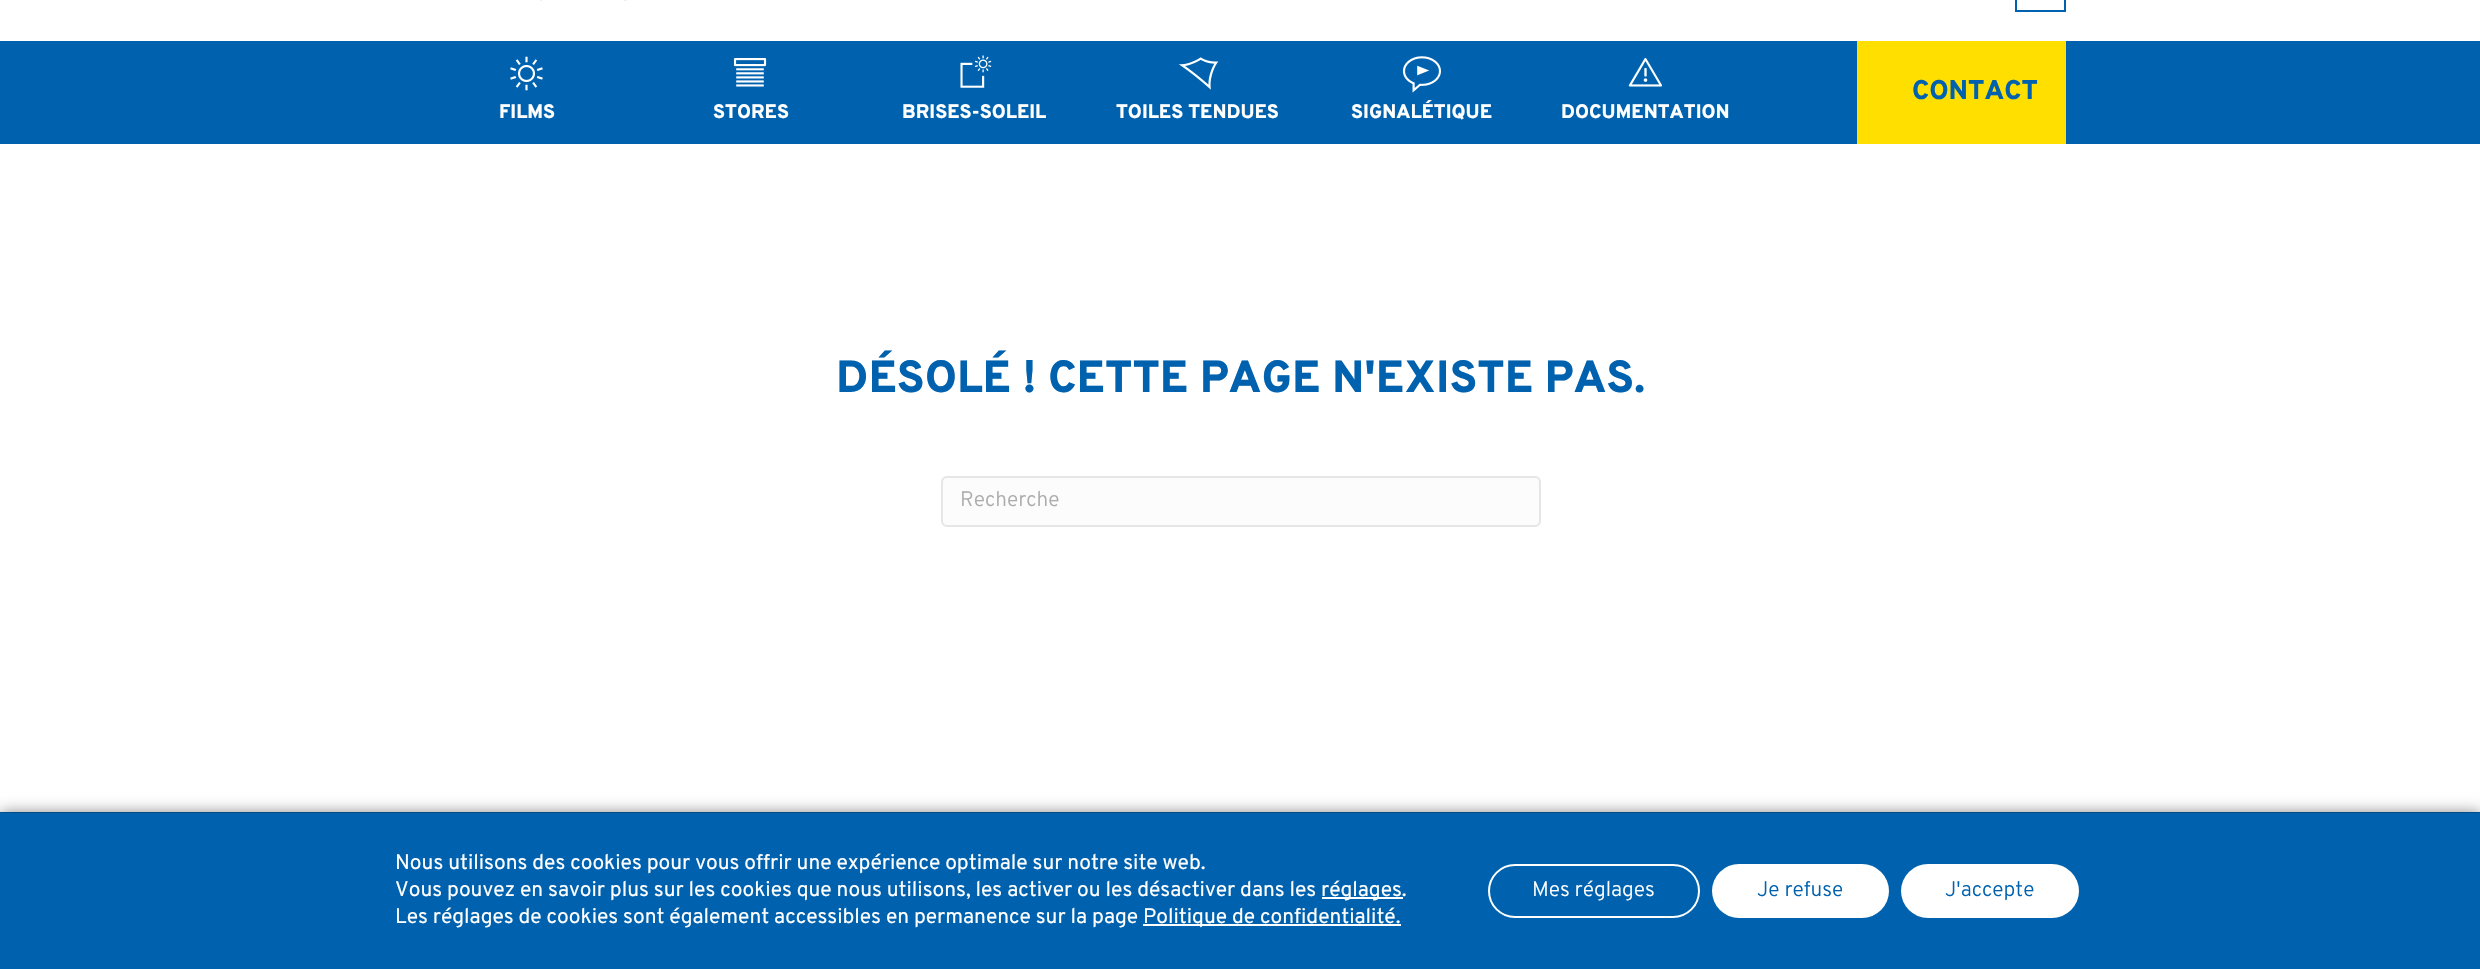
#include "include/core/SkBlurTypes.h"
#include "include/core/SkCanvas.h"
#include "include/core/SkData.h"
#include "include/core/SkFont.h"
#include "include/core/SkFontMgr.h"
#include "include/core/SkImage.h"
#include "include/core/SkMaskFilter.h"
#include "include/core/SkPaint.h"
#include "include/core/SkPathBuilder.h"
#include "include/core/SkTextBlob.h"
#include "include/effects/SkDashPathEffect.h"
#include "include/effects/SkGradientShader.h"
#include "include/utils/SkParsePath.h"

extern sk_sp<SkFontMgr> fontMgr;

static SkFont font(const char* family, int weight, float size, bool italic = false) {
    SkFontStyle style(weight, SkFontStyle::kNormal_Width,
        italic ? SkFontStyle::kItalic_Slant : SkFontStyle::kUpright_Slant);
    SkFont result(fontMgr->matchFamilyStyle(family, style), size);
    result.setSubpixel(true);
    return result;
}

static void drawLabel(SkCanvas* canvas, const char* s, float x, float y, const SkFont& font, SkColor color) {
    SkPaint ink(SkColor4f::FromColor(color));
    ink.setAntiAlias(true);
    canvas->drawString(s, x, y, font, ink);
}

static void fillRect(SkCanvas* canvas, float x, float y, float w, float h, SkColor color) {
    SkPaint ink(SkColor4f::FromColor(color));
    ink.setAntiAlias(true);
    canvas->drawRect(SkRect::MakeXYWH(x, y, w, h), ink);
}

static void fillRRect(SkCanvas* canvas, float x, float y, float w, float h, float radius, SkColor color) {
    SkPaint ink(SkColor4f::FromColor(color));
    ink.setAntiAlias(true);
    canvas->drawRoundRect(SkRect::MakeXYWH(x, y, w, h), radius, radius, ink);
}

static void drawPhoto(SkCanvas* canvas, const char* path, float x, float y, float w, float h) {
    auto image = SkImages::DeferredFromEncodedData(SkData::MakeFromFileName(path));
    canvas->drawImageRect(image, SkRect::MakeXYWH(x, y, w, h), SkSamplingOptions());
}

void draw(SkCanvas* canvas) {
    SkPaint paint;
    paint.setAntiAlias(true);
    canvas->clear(0xFFFFFFFF);
    drawPhoto(canvas, "assets/img1.png", 540, 0, 87, 1);
    paint.setStroke(true);
    paint.setStrokeWidth(2);
    paint.setColor(0xFF0062AE);
    canvas->drawRect(SkRect::MakeXYWH(2016, -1, 49, 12), paint);
    fillRect(canvas, 0, 41, 2480, 103, 0xFF0062AE);
    fillRect(canvas, 1857, 41, 209, 103, 0xFFFFDF00);
    SkFont font1 = font("Overpass", 800, 27);
    drawLabel(canvas, "CONTACT", 1912, 99, font1, 0xFF0062AE);
    drawPhoto(canvas, "assets/img2.png", 510, 56, 33, 35);
    SkFont font2 = font("Overpass", 800, 19.5f);
    drawLabel(canvas, "FILMS", 499, 118, font2, 0xFFFFFFFF);
    drawPhoto(canvas, "assets/img3.png", 733, 58, 34, 29);
    drawLabel(canvas, "STORES", 713, 118, font2, 0xFFFFFFFF);
    drawPhoto(canvas, "assets/img4.png", 960, 55, 32, 33);
    drawLabel(canvas, "BRISES-SOLEIL", 902, 118, font2, 0xFFFFFFFF);
    drawPhoto(canvas, "assets/img5.png", 1178, 57, 41, 33);
    drawLabel(canvas, "TOILES TENDUES", 1116, 118, font2, 0xFFFFFFFF);
    drawPhoto(canvas, "assets/img6.png", 1402, 56, 39, 37);
    drawLabel(canvas, "SIGNALÉTIQUE", 1351, 118, font2, 0xFFFFFFFF);
    drawPhoto(canvas, "assets/img7.png", 1628, 58, 34, 29);
    drawLabel(canvas, "DOCUMENTATION", 1561, 118, font2, 0xFFFFFFFF);
    SkFont font3 = font("Overpass", 800, 45);
    drawLabel(canvas, "DÉSOLÉ ! CETTE PAGE N'EXISTE PAS.", 836, 392, font3, 0xFF0062AE);
    paint.setStroke(false);
    paint.setColor(0xFFFCFCFC);
    canvas->drawRoundRect(SkRect::MakeXYWH(942, 477, 598, 49), 5, 5, paint);
    paint.setStroke(true);
    paint.setColor(0xFFE6E6E6);
    canvas->drawRoundRect(SkRect::MakeXYWH(942, 477, 598, 49), 5, 5, paint);
    SkFont font4 = font("Overpass", 300, 21);
    drawLabel(canvas, "Recherche", 960, 506, font4, 0xFFACACAC);
    fillRect(canvas, 0, 812, 2480, 1, 0xFF0062AE);
    paint.setStroke(false);
    paint.setColor(0x80000000);
    paint.setMaskFilter(SkMaskFilter::MakeBlur(kNormal_SkBlurStyle, 7.5f));
    canvas->drawRect(SkRect::MakeXYWH(0, 813, 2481, 156), paint);
    paint.setMaskFilter(nullptr);
    fillRect(canvas, 0, 813, 2480, 156, 0xFF0062AE);
    SkFont font5 = font("Overpass", 400, 21);
    drawLabel(canvas, "Nous utilisons des cookies pour vous offrir une expérience optimale sur notre site web.", 395, 869, font5, 0xFFFFFFFF);
    drawLabel(canvas, "Vous pouvez en savoir plus sur les cookies que nous utilisons, les activer ou les désactiver dans les", 395, 896, font5, 0xFFFFFFFF);
    fillRect(canvas, 1322, 897, 81, 2, 0xFFFFFFFF);
    drawLabel(canvas, "réglages.", 1321, 896, font5, 0xFFFFFFFF);
    drawLabel(canvas, "Les réglages de cookies sont également accessibles en permanence sur la page", 395, 923, font5, 0xFFFFFFFF);
    fillRect(canvas, 1143, 924, 258, 2, 0xFFFFFFFF);
    drawLabel(canvas, "Politique de confidentialité.", 1143, 923, font5, 0xFFFFFFFF);
    paint.setStroke(true);
    paint.setColor(0xFFFFFFFF);
    canvas->drawRoundRect(SkRect::MakeXYWH(1489, 865, 210, 52), 26, 26, paint);
    drawLabel(canvas, "Mes réglages", 1532, 896, font4, 0xFFFFFFFF);
    fillRRect(canvas, 1712, 864, 177, 54, 27, 0xFFFFFFFF);
    drawLabel(canvas, "Je refuse", 1757, 896, font4, 0xFF0062AE);
    fillRRect(canvas, 1901, 864, 178, 54, 27, 0xFFFFFFFF);
    drawLabel(canvas, "J'accepte", 1945, 896, font4, 0xFF0062AE);
}
